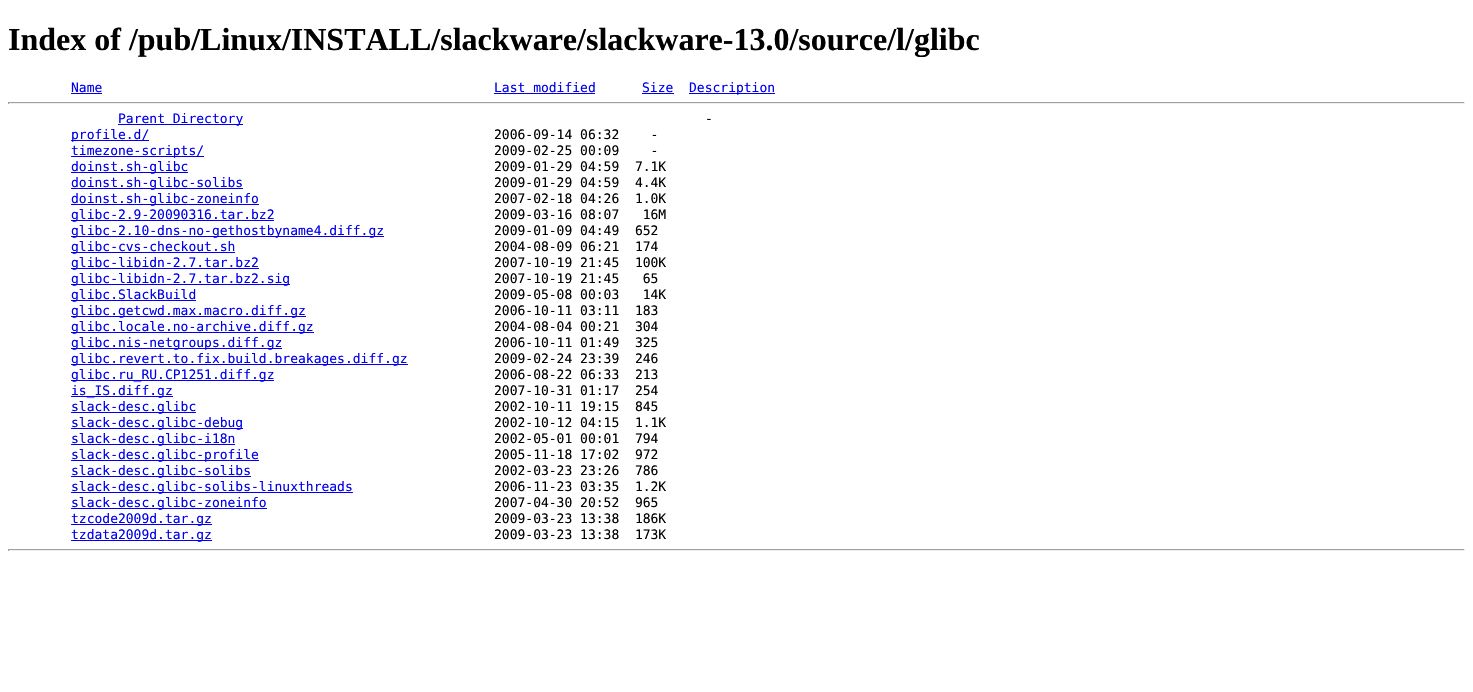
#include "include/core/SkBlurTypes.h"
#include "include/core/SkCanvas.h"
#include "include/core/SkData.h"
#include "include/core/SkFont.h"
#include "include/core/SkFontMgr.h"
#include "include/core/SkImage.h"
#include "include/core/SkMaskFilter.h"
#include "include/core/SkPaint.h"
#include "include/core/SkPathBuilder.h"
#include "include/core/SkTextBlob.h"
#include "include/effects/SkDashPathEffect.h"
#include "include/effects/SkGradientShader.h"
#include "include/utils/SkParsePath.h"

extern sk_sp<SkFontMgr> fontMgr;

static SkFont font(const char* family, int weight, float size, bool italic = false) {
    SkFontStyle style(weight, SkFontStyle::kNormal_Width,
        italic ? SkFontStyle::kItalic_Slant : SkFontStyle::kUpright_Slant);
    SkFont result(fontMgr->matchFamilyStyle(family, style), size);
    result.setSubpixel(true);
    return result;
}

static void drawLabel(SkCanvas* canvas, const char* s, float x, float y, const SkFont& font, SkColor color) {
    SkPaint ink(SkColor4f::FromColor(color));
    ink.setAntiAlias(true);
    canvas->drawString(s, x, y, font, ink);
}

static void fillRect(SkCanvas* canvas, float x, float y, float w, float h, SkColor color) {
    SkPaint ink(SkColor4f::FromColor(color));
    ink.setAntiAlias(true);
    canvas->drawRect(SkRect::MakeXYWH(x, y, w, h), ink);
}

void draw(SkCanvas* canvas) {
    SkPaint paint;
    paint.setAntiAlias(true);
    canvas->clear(0xFFFFFFFF);
    SkFont font1 = font("Liberation Serif", 700, 32);
    drawLabel(canvas, "Index of /pub/Linux/INSTALL/slackware/slackware-13.0/source/l/glibc", 8, 50, font1, 0xFF000000);
    SkFont font2 = font("DejaVu Sans Mono", 400, 13);
    drawLabel(canvas, "Name", 71, 92, font2, 0xFF0000EE);
    fillRect(canvas, 71, 93, 31, 1, 0xFF0000EE);
    drawLabel(canvas, "Last modified", 494, 92, font2, 0xFF0000EE);
    fillRect(canvas, 494, 93, 101, 1, 0xFF0000EE);
    drawLabel(canvas, "Size", 642, 92, font2, 0xFF0000EE);
    fillRect(canvas, 642, 93, 32, 1, 0xFF0000EE);
    fillRect(canvas, 689, 93, 86, 1, 0xFF0000EE);
    drawLabel(canvas, "Description", 689, 92, font2, 0xFF0000EE);
    fillRect(canvas, 8, 102, 1457, 1, 0xFF9F9F9F);
    fillRect(canvas, 1464, 102, 1, 2, 0xFFEEEEEE);
    fillRect(canvas, 8, 103, 1457, 1, 0xFFEEEEEE);
    fillRect(canvas, 8, 102, 1, 2, 0xFF9F9F9F);
    fillRect(canvas, 118, 124, 125, 1, 0xFF0000EE);
    drawLabel(canvas, "Parent Directory", 118, 123, font2, 0xFF0000EE);
    drawLabel(canvas, "-", 705, 123, font2, 0xFF000000);
    fillRect(canvas, 71, 140, 78, 1, 0xFF0000EE);
    drawLabel(canvas, "profile.d/", 71, 139, font2, 0xFF0000EE);
    drawLabel(canvas, "2006-09-14 06:32    -", 494, 139, font2, 0xFF000000);
    fillRect(canvas, 71, 156, 133, 1, 0xFF0000EE);
    drawLabel(canvas, "timezone-scripts/", 71, 155, font2, 0xFF0000EE);
    drawLabel(canvas, "2009-02-25 00:09    -", 494, 155, font2, 0xFF000000);
    fillRect(canvas, 71, 172, 117, 1, 0xFF0000EE);
    drawLabel(canvas, "doinst.sh-glibc", 71, 171, font2, 0xFF0000EE);
    drawLabel(canvas, "2009-01-29 04:59  7.1K", 494, 171, font2, 0xFF000000);
    fillRect(canvas, 71, 188, 172, 1, 0xFF0000EE);
    drawLabel(canvas, "doinst.sh-glibc-solibs", 71, 187, font2, 0xFF0000EE);
    drawLabel(canvas, "2009-01-29 04:59  4.4K", 494, 187, font2, 0xFF000000);
    fillRect(canvas, 71, 204, 188, 1, 0xFF0000EE);
    drawLabel(canvas, "doinst.sh-glibc-zoneinfo", 71, 203, font2, 0xFF0000EE);
    drawLabel(canvas, "2007-02-18 04:26  1.0K", 494, 203, font2, 0xFF000000);
    fillRect(canvas, 71, 220, 203, 1, 0xFF0000EE);
    drawLabel(canvas, "glibc-2.9-20090316.tar.bz2", 71, 219, font2, 0xFF0000EE);
    drawLabel(canvas, "2009-03-16 08:07   16M", 494, 219, font2, 0xFF000000);
    fillRect(canvas, 71, 236, 313, 1, 0xFF0000EE);
    drawLabel(canvas, "glibc-2.10-dns-no-gethostbyname4.diff.gz", 71, 235, font2, 0xFF0000EE);
    drawLabel(canvas, "2009-01-09 04:49  652", 494, 235, font2, 0xFF000000);
    fillRect(canvas, 71, 252, 164, 1, 0xFF0000EE);
    drawLabel(canvas, "glibc-cvs-checkout.sh", 71, 251, font2, 0xFF0000EE);
    drawLabel(canvas, "2004-08-09 06:21  174", 494, 251, font2, 0xFF000000);
    fillRect(canvas, 71, 268, 188, 1, 0xFF0000EE);
    drawLabel(canvas, "glibc-libidn-2.7.tar.bz2", 71, 267, font2, 0xFF0000EE);
    drawLabel(canvas, "2007-10-19 21:45  100K", 494, 267, font2, 0xFF000000);
    fillRect(canvas, 71, 284, 219, 1, 0xFF0000EE);
    drawLabel(canvas, "glibc-libidn-2.7.tar.bz2.sig", 71, 283, font2, 0xFF0000EE);
    drawLabel(canvas, "2007-10-19 21:45   65", 494, 283, font2, 0xFF000000);
    fillRect(canvas, 71, 300, 125, 1, 0xFF0000EE);
    drawLabel(canvas, "glibc.SlackBuild", 71, 299, font2, 0xFF0000EE);
    drawLabel(canvas, "2009-05-08 00:03   14K", 494, 299, font2, 0xFF000000);
    fillRect(canvas, 71, 316, 235, 1, 0xFF0000EE);
    drawLabel(canvas, "glibc.getcwd.max.macro.diff.gz", 71, 315, font2, 0xFF0000EE);
    drawLabel(canvas, "2006-10-11 03:11  183", 494, 315, font2, 0xFF000000);
    fillRect(canvas, 71, 332, 243, 1, 0xFF0000EE);
    drawLabel(canvas, "glibc.locale.no-archive.diff.gz", 71, 331, font2, 0xFF0000EE);
    drawLabel(canvas, "2004-08-04 00:21  304", 494, 331, font2, 0xFF000000);
    fillRect(canvas, 71, 348, 211, 1, 0xFF0000EE);
    drawLabel(canvas, "glibc.nis-netgroups.diff.gz", 71, 347, font2, 0xFF0000EE);
    drawLabel(canvas, "2006-10-11 01:49  325", 494, 347, font2, 0xFF000000);
    fillRect(canvas, 71, 364, 337, 1, 0xFF0000EE);
    drawLabel(canvas, "glibc.revert.to.fix.build.breakages.diff.gz", 71, 363, font2, 0xFF0000EE);
    drawLabel(canvas, "2009-02-24 23:39  246", 494, 363, font2, 0xFF000000);
    fillRect(canvas, 71, 380, 203, 1, 0xFF0000EE);
    drawLabel(canvas, "glibc.ru_RU.CP1251.diff.gz", 71, 379, font2, 0xFF0000EE);
    drawLabel(canvas, "2006-08-22 06:33  213", 494, 379, font2, 0xFF000000);
    fillRect(canvas, 71, 396, 102, 1, 0xFF0000EE);
    drawLabel(canvas, "is_IS.diff.gz", 71, 395, font2, 0xFF0000EE);
    drawLabel(canvas, "2007-10-31 01:17  254", 494, 395, font2, 0xFF000000);
    fillRect(canvas, 71, 412, 125, 1, 0xFF0000EE);
    drawLabel(canvas, "slack-desc.glibc", 71, 411, font2, 0xFF0000EE);
    drawLabel(canvas, "2002-10-11 19:15  845", 494, 411, font2, 0xFF000000);
    fillRect(canvas, 71, 428, 172, 1, 0xFF0000EE);
    drawLabel(canvas, "slack-desc.glibc-debug", 71, 427, font2, 0xFF0000EE);
    drawLabel(canvas, "2002-10-12 04:15  1.1K", 494, 427, font2, 0xFF000000);
    fillRect(canvas, 71, 444, 164, 1, 0xFF0000EE);
    drawLabel(canvas, "slack-desc.glibc-i18n", 71, 443, font2, 0xFF0000EE);
    drawLabel(canvas, "2002-05-01 00:01  794", 494, 443, font2, 0xFF000000);
    fillRect(canvas, 71, 460, 188, 1, 0xFF0000EE);
    drawLabel(canvas, "slack-desc.glibc-profile", 71, 459, font2, 0xFF0000EE);
    drawLabel(canvas, "2005-11-18 17:02  972", 494, 459, font2, 0xFF000000);
    fillRect(canvas, 71, 476, 180, 1, 0xFF0000EE);
    drawLabel(canvas, "slack-desc.glibc-solibs", 71, 475, font2, 0xFF0000EE);
    drawLabel(canvas, "2002-03-23 23:26  786", 494, 475, font2, 0xFF000000);
    fillRect(canvas, 71, 492, 282, 1, 0xFF0000EE);
    drawLabel(canvas, "slack-desc.glibc-solibs-linuxthreads", 71, 491, font2, 0xFF0000EE);
    drawLabel(canvas, "2006-11-23 03:35  1.2K", 494, 491, font2, 0xFF000000);
    fillRect(canvas, 71, 508, 196, 1, 0xFF0000EE);
    drawLabel(canvas, "slack-desc.glibc-zoneinfo", 71, 507, font2, 0xFF0000EE);
    drawLabel(canvas, "2007-04-30 20:52  965", 494, 507, font2, 0xFF000000);
    fillRect(canvas, 71, 524, 141, 1, 0xFF0000EE);
    drawLabel(canvas, "tzcode2009d.tar.gz", 71, 523, font2, 0xFF0000EE);
    drawLabel(canvas, "2009-03-23 13:38  186K", 494, 523, font2, 0xFF000000);
    fillRect(canvas, 71, 540, 141, 1, 0xFF0000EE);
    drawLabel(canvas, "tzdata2009d.tar.gz", 71, 539, font2, 0xFF0000EE);
    drawLabel(canvas, "2009-03-23 13:38  173K", 494, 539, font2, 0xFF000000);
    fillRect(canvas, 8, 549, 1457, 1, 0xFF9F9F9F);
    fillRect(canvas, 1464, 549, 1, 2, 0xFFEEEEEE);
    fillRect(canvas, 8, 550, 1457, 1, 0xFFEEEEEE);
    fillRect(canvas, 8, 549, 1, 2, 0xFF9F9F9F);
}
